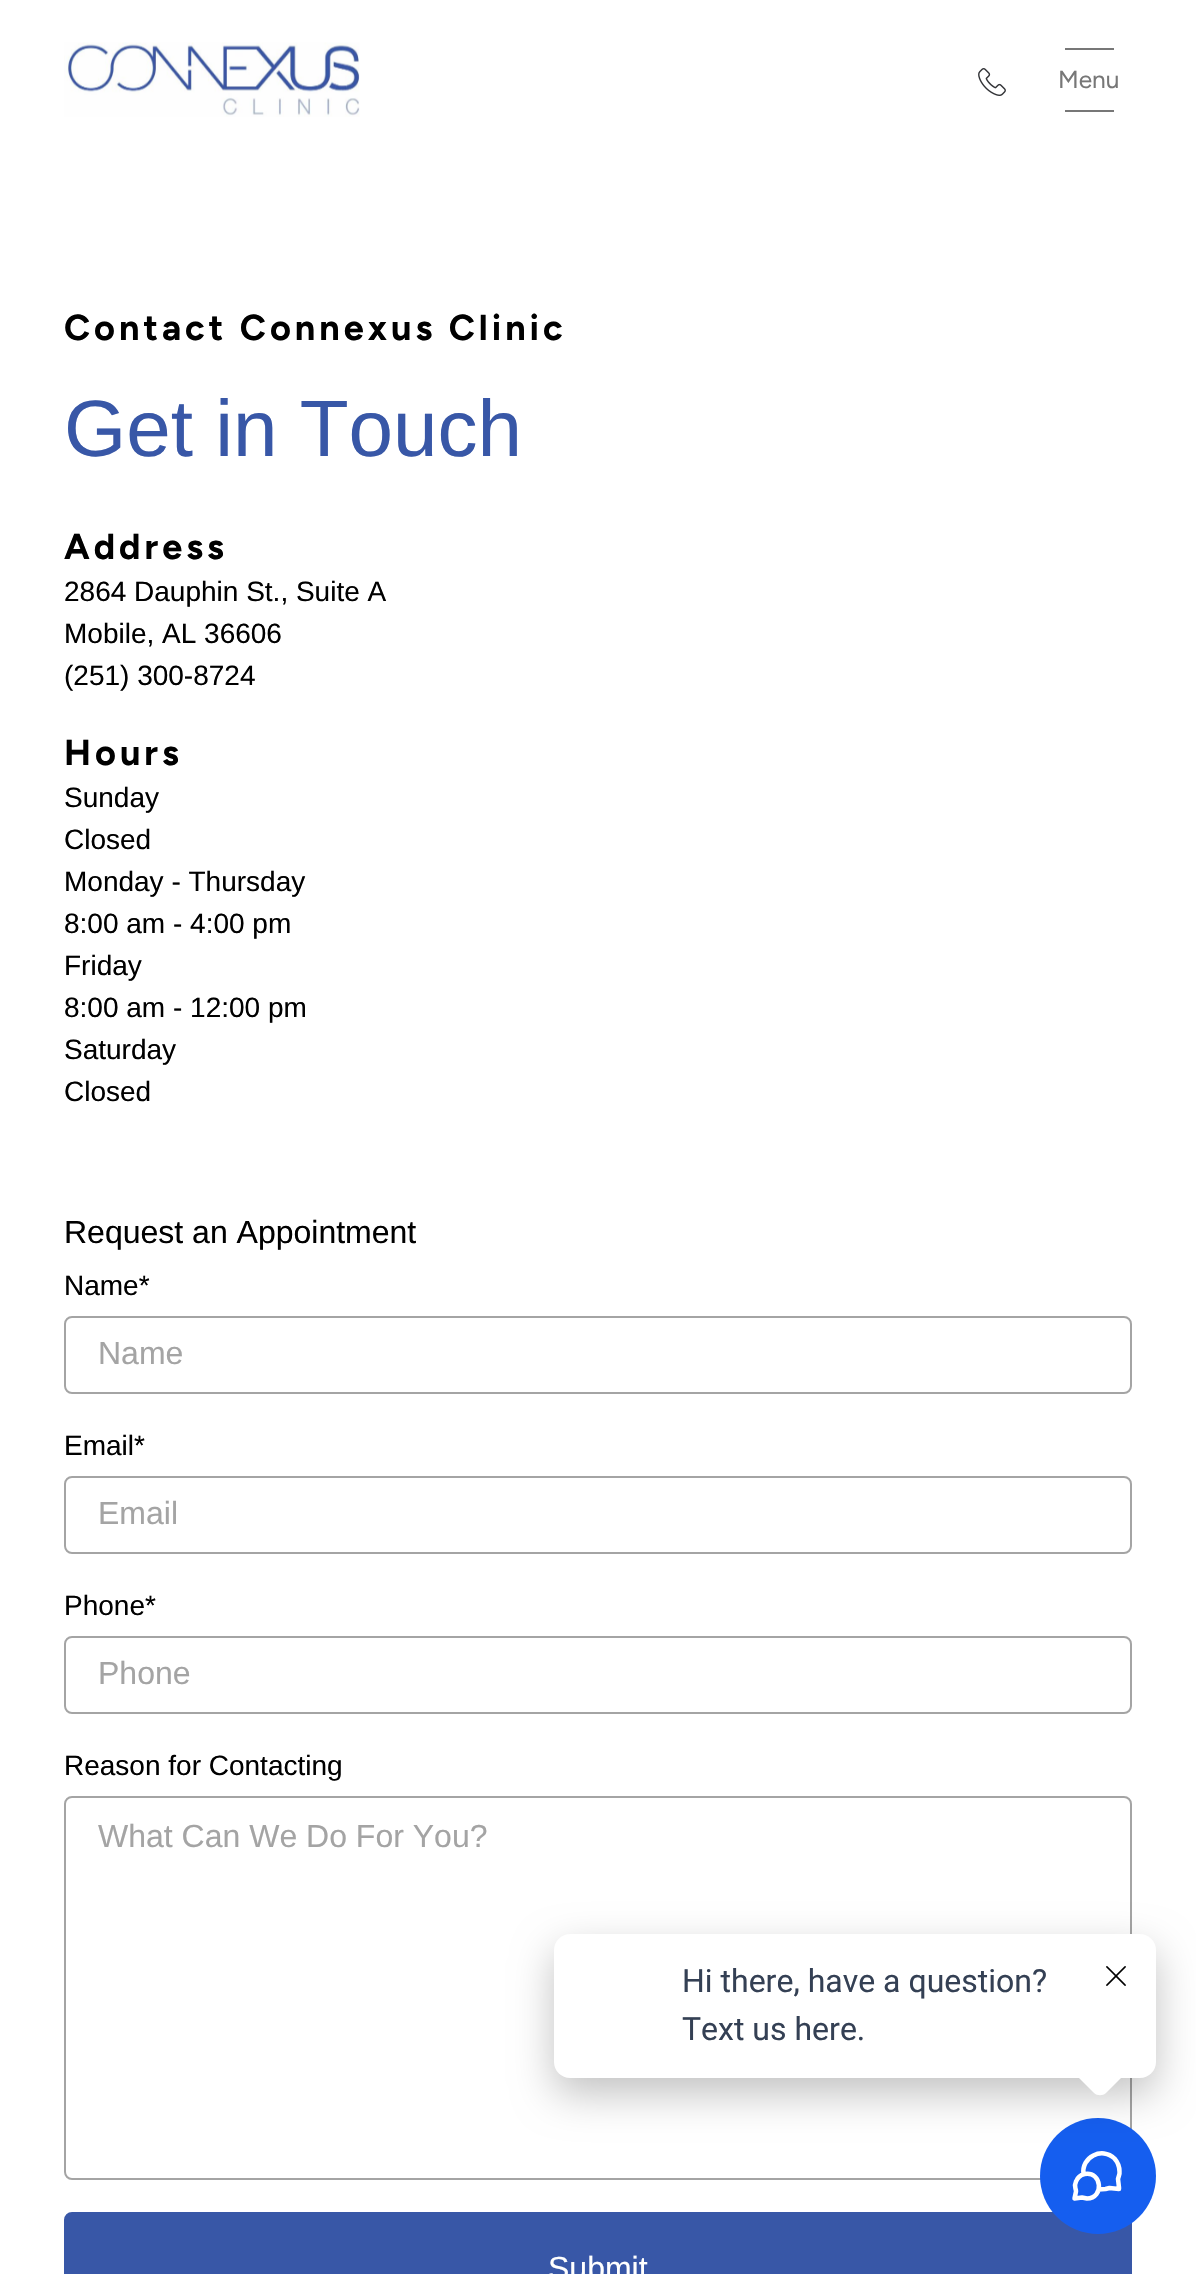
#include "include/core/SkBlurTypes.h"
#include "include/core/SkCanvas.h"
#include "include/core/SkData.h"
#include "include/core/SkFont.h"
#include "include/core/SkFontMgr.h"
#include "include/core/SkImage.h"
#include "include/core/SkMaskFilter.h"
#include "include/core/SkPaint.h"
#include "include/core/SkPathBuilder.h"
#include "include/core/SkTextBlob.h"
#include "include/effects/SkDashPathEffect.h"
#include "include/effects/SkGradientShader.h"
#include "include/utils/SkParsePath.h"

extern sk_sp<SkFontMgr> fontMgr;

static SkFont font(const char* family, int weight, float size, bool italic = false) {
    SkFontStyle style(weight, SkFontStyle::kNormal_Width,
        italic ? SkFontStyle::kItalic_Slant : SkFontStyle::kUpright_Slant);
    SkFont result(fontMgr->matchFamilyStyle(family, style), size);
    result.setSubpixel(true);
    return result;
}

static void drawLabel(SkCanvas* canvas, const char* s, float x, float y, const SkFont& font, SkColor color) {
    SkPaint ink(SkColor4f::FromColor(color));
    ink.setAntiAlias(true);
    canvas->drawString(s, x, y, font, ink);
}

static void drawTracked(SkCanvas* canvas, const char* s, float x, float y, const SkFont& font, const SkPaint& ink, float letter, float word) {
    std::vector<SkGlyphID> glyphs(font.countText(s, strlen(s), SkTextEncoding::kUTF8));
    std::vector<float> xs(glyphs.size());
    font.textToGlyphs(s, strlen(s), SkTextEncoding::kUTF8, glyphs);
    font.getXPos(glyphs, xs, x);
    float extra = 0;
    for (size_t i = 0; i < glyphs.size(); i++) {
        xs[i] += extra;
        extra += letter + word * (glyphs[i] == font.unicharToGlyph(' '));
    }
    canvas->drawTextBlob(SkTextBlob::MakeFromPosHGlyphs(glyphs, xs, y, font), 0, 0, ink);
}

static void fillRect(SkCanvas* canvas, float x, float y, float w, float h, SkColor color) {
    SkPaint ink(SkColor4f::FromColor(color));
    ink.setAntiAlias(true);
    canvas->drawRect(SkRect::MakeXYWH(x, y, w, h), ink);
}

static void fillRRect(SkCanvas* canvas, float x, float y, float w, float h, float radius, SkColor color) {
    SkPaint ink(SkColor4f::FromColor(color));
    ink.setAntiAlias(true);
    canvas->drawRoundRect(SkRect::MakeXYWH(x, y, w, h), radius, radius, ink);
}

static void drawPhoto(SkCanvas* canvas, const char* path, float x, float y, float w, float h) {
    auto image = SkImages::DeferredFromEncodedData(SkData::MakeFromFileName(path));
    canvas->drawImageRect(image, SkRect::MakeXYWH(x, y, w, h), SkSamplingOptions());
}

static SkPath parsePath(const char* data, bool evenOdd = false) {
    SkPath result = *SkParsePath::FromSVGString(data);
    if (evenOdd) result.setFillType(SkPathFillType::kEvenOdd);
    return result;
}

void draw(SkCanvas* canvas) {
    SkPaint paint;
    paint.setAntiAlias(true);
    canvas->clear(0xFFFFFFFF);
    drawPhoto(canvas, "assets/img1.png", 64, 42, 296, 75);
    drawPhoto(canvas, "assets/img2.png", 978, 68, 28, 28);
    fillRect(canvas, 1065, 48, 49, 2, 0xFF777777);
    SkFont font1 = font("Figtree", 400, 24.5f);
    drawLabel(canvas, "Menu", 1058, 88, font1, 0xFF777777);
    fillRect(canvas, 1065, 110, 49, 2, 0xFF777777);
    SkFont font2 = font("Figtree", 700, 36);
    paint.setColor(0xFF000000);
    drawTracked(canvas, "Contact Connexus Clinic", 64, 340, font2, paint, 4, 0);
    SkFont font3 = font("Liberation Sans", 400, 80);
    drawLabel(canvas, "Get in Touch", 64, 456, font3, 0xFF3857A7);
    drawTracked(canvas, "Address", 64, 559, font2, paint, 4, 0);
    SkFont font4 = font("Liberation Sans", 400, 28);
    drawLabel(canvas, "2864 Dauphin St., Suite A", 64, 601, font4, 0xFF000000);
    drawLabel(canvas, "Mobile, AL 36606", 64, 643, font4, 0xFF000000);
    drawLabel(canvas, "(251) 300-8724", 64, 685, font4, 0xFF000000);
    drawTracked(canvas, "Hours", 64, 765, font2, paint, 4, 0);
    drawLabel(canvas, "Sunday", 64, 807, font4, 0xFF000000);
    drawLabel(canvas, "Closed", 64, 849, font4, 0xFF000000);
    drawLabel(canvas, "Monday - Thursday", 64, 891, font4, 0xFF000000);
    drawLabel(canvas, "8:00 am - 4:00 pm", 64, 933, font4, 0xFF000000);
    drawLabel(canvas, "Friday", 64, 975, font4, 0xFF000000);
    drawLabel(canvas, "8:00 am - 12:00 pm", 64, 1017, font4, 0xFF000000);
    drawLabel(canvas, "Saturday", 64, 1059, font4, 0xFF000000);
    drawLabel(canvas, "Closed", 64, 1101, font4, 0xFF000000);
    SkFont font5 = font("Liberation Sans", 400, 32);
    drawLabel(canvas, "Request an Appointment", 64, 1243, font5, 0xFF000000);
    drawLabel(canvas, "Name*", 64, 1295, font4, 0xFF000000);
    paint.setStroke(true);
    paint.setStrokeWidth(2);
    paint.setColor(0xFFA4A4A4);
    canvas->drawRoundRect(SkRect::MakeXYWH(65, 1317, 1066, 76), 7, 7, paint);
    drawLabel(canvas, "Name", 98, 1364, font5, 0xFFA4A4A4);
    drawLabel(canvas, "Email*", 64, 1455, font4, 0xFF000000);
    canvas->drawRoundRect(SkRect::MakeXYWH(65, 1477, 1066, 76), 7, 7, paint);
    drawLabel(canvas, "Email", 98, 1524, font5, 0xFFA4A4A4);
    drawLabel(canvas, "Phone*", 64, 1615, font4, 0xFF000000);
    canvas->drawRoundRect(SkRect::MakeXYWH(65, 1637, 1066, 76), 7, 7, paint);
    drawLabel(canvas, "Phone", 98, 1684, font5, 0xFFA4A4A4);
    drawLabel(canvas, "Reason for Contacting", 64, 1775, font4, 0xFF000000);
    canvas->drawRoundRect(SkRect::MakeXYWH(65, 1797, 1066, 382), 7, 7, paint);
    drawLabel(canvas, "What Can We Do For You?", 98, 1847, font5, 0xFFA4A4A4);
    paint.setStroke(false);
    paint.setColor(0xFF3857A7);
    canvas->drawRoundRect(SkRect::MakeXYWH(65, 2213, 1066, 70), 7, 7, paint);
    paint.setStroke(true);
    canvas->drawRoundRect(SkRect::MakeXYWH(65, 2213, 1066, 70), 7, 7, paint);
    drawLabel(canvas, "Submit", 548, 2279, font5, 0xFFFFFFFF);
    paint.setStroke(false);
    paint.setColor(0xFF155EEF);
    canvas->drawCircle(1098, 2176, 58, paint);
    paint.setStroke(true);
    paint.setStrokeWidth(4.5f);
    paint.setStrokeCap(SkPaint::kRound_Cap);
    paint.setStrokeJoin(SkPaint::kRound_Join);
    paint.setColor(0xFFFFFFFF);
    canvas->drawPath(parsePath("M1083.5 2174.5C1081 2157 1102 2146.5 1114.5 2158.5C1118 2162.5 1119.5 2166.5 1119.5 2171.5C1120 2174 1118.5 2176.5 1118 2179L1119 2187.5V2189L1109.5 2188L1105.5 2189L1098.5 2189.5M1087 2198.5C1104.5 2198.5 1102 2170.5 1084.5 2174C1080.5 2175 1077.5 2177.5 1076 2181.5C1073.5 2187 1076 2187.5 1076 2191.5L1074.5 2198.5L1082 2197.5Z"), paint);
    paint.setStroke(false);
    paint.setColor(0x3D000000);
    paint.setMaskFilter(SkMaskFilter::MakeBlur(kNormal_SkBlurStyle, 20));
    canvas->drawRoundRect(SkRect::MakeXYWH(554, 1950, 602, 144), 16, 16, paint);
    paint.setMaskFilter(nullptr);
    fillRRect(canvas, 554, 1934, 602, 144, 16, 0xFFFFFFFF);
    SkFont font6 = font("Roboto", 400, 32);
    drawLabel(canvas, "Hi there, have a question?", 682, 1992, font6, 0xFF344054);
    drawLabel(canvas, "Text us here.", 682, 2040, font6, 0xFF344054);
    paint.setColor(0xFFFFFFFF);
    canvas->drawPath(parsePath("M1106 2047L1123 2064C1126 2067 1126 2073 1123 2076L1106 2093C1103 2096 1097 2096 1094 2093L1077 2076C1074 2073 1074 2067 1077 2064L1094 2047C1097 2044 1103 2044 1106 2047Z"), paint);
    drawPhoto(canvas, "assets/img3.png", 1106, 1966, 20, 20);
}
